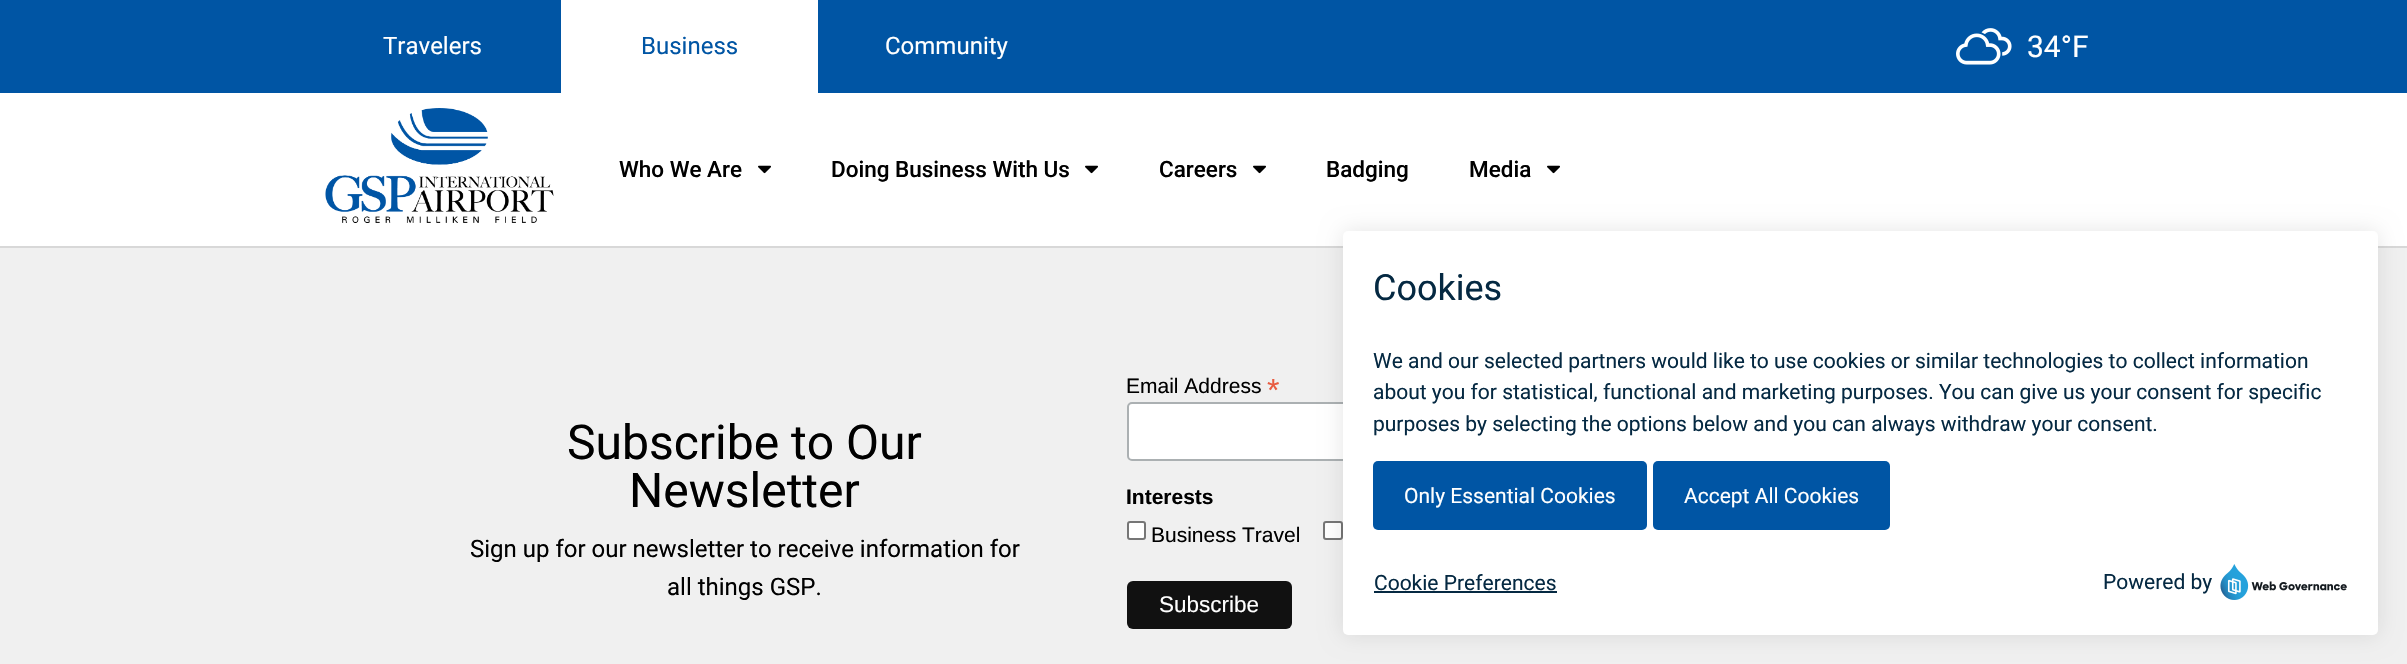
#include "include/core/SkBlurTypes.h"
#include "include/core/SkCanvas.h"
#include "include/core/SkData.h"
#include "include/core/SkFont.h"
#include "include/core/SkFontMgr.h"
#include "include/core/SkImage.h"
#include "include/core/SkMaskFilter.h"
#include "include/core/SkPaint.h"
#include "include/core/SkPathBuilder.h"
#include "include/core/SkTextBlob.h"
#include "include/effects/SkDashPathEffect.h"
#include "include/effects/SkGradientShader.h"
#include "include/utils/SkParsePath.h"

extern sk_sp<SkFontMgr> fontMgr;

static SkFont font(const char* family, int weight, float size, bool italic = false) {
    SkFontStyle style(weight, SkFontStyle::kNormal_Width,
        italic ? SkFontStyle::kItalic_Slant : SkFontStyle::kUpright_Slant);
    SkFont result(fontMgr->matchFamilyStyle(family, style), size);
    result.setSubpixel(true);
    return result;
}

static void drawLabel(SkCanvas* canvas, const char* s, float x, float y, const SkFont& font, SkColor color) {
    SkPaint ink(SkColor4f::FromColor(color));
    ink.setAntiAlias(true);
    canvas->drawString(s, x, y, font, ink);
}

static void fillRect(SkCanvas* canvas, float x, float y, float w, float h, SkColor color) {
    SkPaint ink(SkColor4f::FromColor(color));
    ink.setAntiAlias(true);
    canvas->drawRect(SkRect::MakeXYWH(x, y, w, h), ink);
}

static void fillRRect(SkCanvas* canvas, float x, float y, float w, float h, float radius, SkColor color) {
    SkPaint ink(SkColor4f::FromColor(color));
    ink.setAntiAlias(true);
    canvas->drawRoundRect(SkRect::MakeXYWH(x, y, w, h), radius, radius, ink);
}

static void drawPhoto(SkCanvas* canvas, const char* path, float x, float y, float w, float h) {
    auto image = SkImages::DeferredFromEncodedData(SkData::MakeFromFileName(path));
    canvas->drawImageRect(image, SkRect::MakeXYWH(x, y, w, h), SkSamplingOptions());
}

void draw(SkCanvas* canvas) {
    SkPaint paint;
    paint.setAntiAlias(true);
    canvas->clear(0xFFFFFFFF);
    fillRect(canvas, 0, 0, 2407, 93, 0xFF0055A4);
    SkFont font1 = font("Roboto", 400, 24);
    drawLabel(canvas, "Travelers", 383, 54, font1, 0xFFFFFFFF);
    fillRect(canvas, 561, 0, 257, 93, 0xFFFFFFFF);
    drawLabel(canvas, "Business", 641, 54, font1, 0xFF0055A4);
    drawLabel(canvas, "Community", 885, 54, font1, 0xFFFFFFFF);
    drawPhoto(canvas, "assets/img1.png", 1956, 28, 56, 37);
    SkFont font2 = font("Roboto", 400, 30);
    drawLabel(canvas, "34°F", 2027, 57, font2, 0xFFFFFFFF);
    fillRect(canvas, 0, 246, 2407, 2, 0xFFD8D8D8);
    drawPhoto(canvas, "assets/img2.png", 325, 108, 229, 115);
    SkFont font3 = font("Roboto", 500, 22.5f);
    drawLabel(canvas, "Who We Are", 619, 177, font3, 0xFF000000);
    drawPhoto(canvas, "assets/img3.png", 758, 165, 13, 9);
    drawLabel(canvas, "Doing Business With Us", 831, 177, font3, 0xFF000000);
    drawPhoto(canvas, "assets/img3.png", 1085, 165, 13, 9);
    drawLabel(canvas, "Careers", 1159, 177, font3, 0xFF000000);
    drawPhoto(canvas, "assets/img3.png", 1253, 165, 13, 9);
    drawLabel(canvas, "Badging", 1326, 177, font3, 0xFF000000);
    drawLabel(canvas, "Media", 1469, 177, font3, 0xFF000000);
    drawPhoto(canvas, "assets/img3.png", 1547, 165, 13, 9);
    fillRect(canvas, 0, 248, 2407, 416, 0xFFF0F0F0);
    SkFont font4 = font("Roboto", 400, 48);
    drawLabel(canvas, "Subscribe to Our", 567, 459, font4, 0xFF000000);
    drawLabel(canvas, "Newsletter", 629, 507, font4, 0xFF000000);
    drawLabel(canvas, "Sign up for our newsletter to receive information for", 470, 557, font1, 0xFF000000);
    drawLabel(canvas, "all things GSP.", 667, 595, font1, 0xFF000000);
    SkFont font5 = font("Liberation Sans", 400, 21);
    drawLabel(canvas, "Email Address", 1126, 393, font5, 0xFF000000);
    SkFont font6 = font("Liberation Sans", 400, 32);
    drawLabel(canvas, "*", 1267, 401, font6, 0xFFE85C41);
    paint.setColor(0xFFFFFFFF);
    canvas->drawRoundRect(SkRect::MakeXYWH(1128, 403, 749, 57), 4, 4, paint);
    paint.setStroke(true);
    paint.setStrokeWidth(2);
    paint.setColor(0xFFABB0B2);
    canvas->drawRoundRect(SkRect::MakeXYWH(1128, 403, 749, 57), 4, 4, paint);
    SkFont font7 = font("Liberation Sans", 700, 21);
    drawLabel(canvas, "Interests", 1126, 504, font7, 0xFF000000);
    paint.setStroke(false);
    paint.setColor(0xFFFFFFFF);
    canvas->drawRoundRect(SkRect::MakeXYWH(1128, 522, 17, 17), 2, 2, paint);
    paint.setStroke(true);
    paint.setColor(0xFF767676);
    canvas->drawRoundRect(SkRect::MakeXYWH(1128, 522, 17, 17), 2, 2, paint);
    drawLabel(canvas, "Business Travel", 1151, 542, font5, 0xFF000000);
    paint.setStroke(false);
    paint.setColor(0xFFFFFFFF);
    canvas->drawRoundRect(SkRect::MakeXYWH(1324, 522, 18, 17), 2, 2, paint);
    paint.setStroke(true);
    paint.setColor(0xFF767676);
    canvas->drawRoundRect(SkRect::MakeXYWH(1324, 522, 18, 17), 2, 2, paint);
    fillRRect(canvas, 1127, 581, 165, 48, 6, 0xFF111111);
    SkFont font8 = font("Liberation Sans", 400, 22.5f);
    drawLabel(canvas, "Subscribe", 1159, 612, font8, 0xFFFFFFFF);
    paint.setStroke(false);
    paint.setColor(0x1A000000);
    paint.setMaskFilter(SkMaskFilter::MakeBlur(kNormal_SkBlurStyle, 11));
    canvas->drawRoundRect(SkRect::MakeXYWH(1343, 231, 1035, 404), 5, 5, paint);
    paint.setMaskFilter(nullptr);
    fillRRect(canvas, 1343, 231, 1035, 404, 5, 0xFFFFFFFF);
    SkFont font9 = font("Roboto", 400, 36);
    drawLabel(canvas, "Cookies", 1373, 300, font9, 0xFF052942);
    SkFont font10 = font("Roboto", 400, 21);
    drawLabel(canvas, "We and our selected partners would like to use cookies or similar technologies to collect information", 1373, 368, font10, 0xFF052942);
    drawLabel(canvas, "about you for statistical, functional and marketing purposes. You can give us your consent for specific", 1373, 399, font10, 0xFF052942);
    drawLabel(canvas, "purposes by selecting the options below and you can always withdraw your consent.", 1373, 431, font10, 0xFF052942);
    fillRRect(canvas, 1373, 461, 274, 69, 5, 0xFF0055A4);
    drawLabel(canvas, "Only Essential Cookies", 1404, 503, font10, 0xFFFFFFFF);
    fillRRect(canvas, 1653, 461, 237, 69, 5, 0xFF0055A4);
    drawLabel(canvas, "Accept All Cookies", 1684, 503, font10, 0xFFFFFFFF);
    drawLabel(canvas, "Cookie Preferences", 1374, 590, font10, 0xFF052942);
    fillRect(canvas, 1374, 591, 183, 2, 0xFF052942);
    drawLabel(canvas, "Powered by", 2103, 589, font10, 0xFF052942);
    drawPhoto(canvas, "assets/img4.png", 2220, 564, 127, 36);
}
